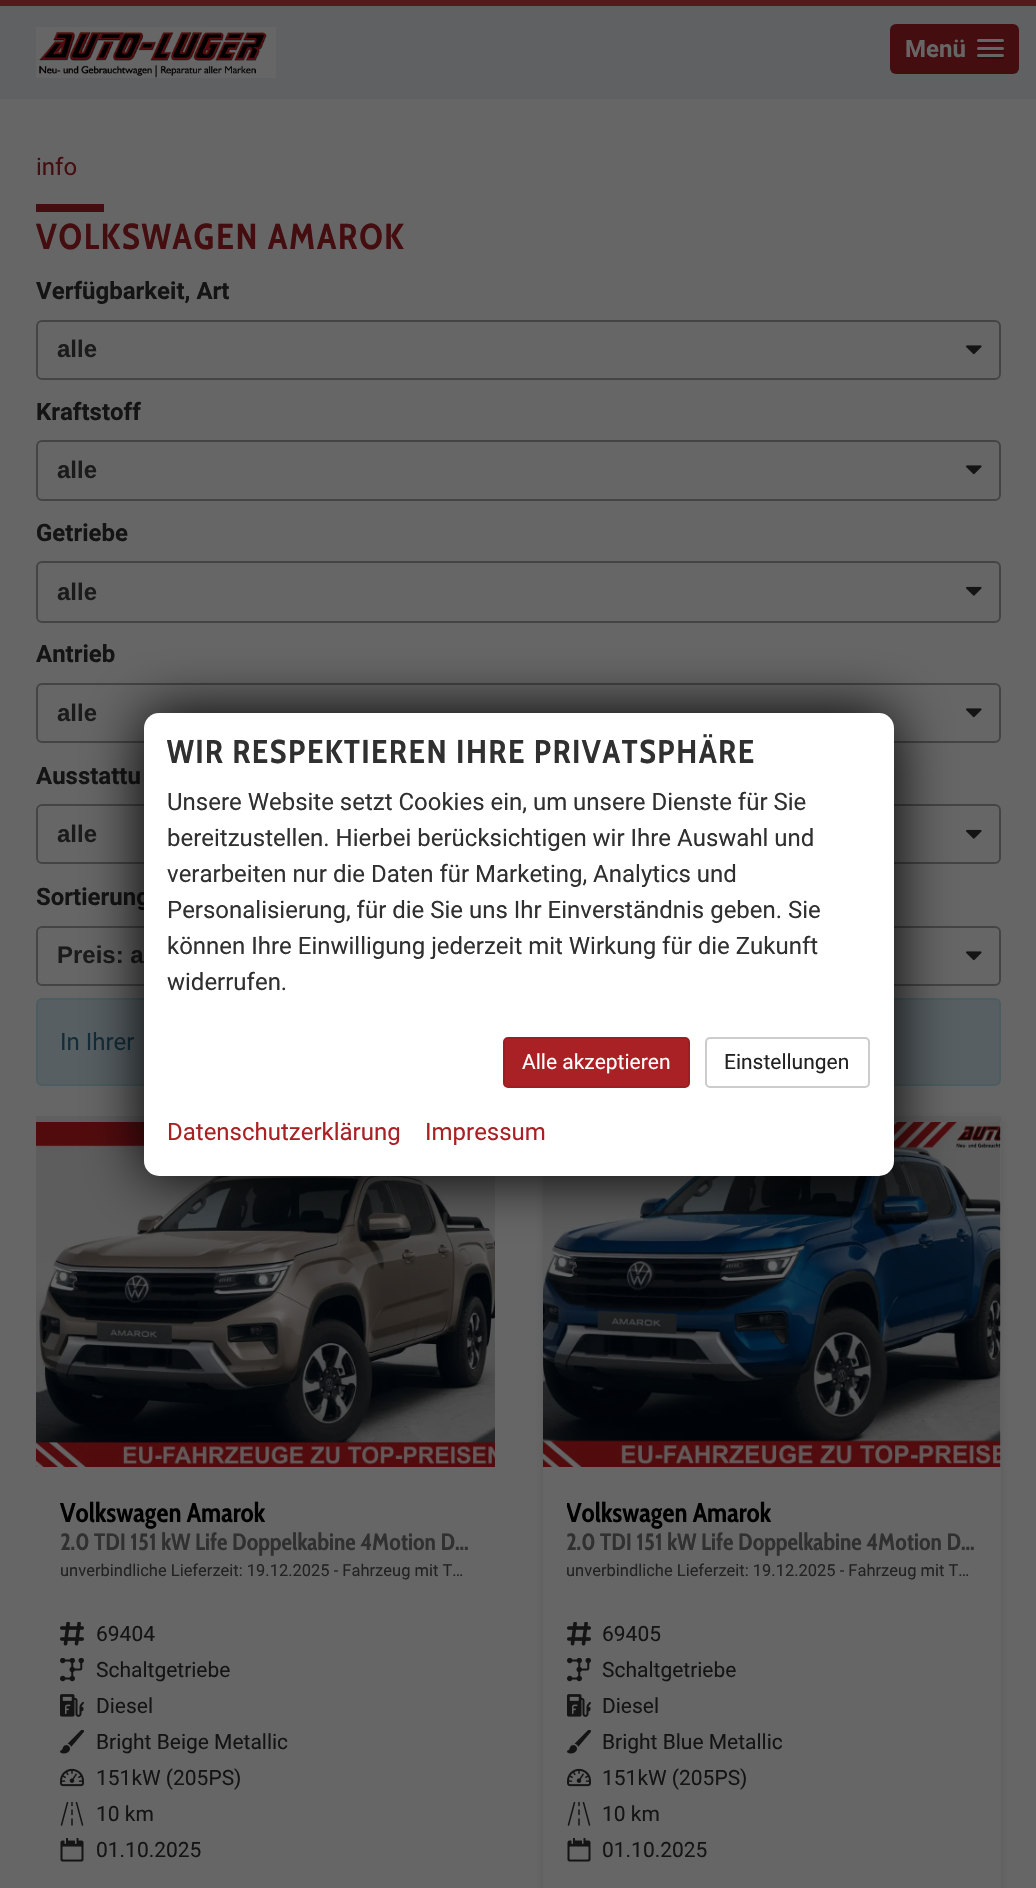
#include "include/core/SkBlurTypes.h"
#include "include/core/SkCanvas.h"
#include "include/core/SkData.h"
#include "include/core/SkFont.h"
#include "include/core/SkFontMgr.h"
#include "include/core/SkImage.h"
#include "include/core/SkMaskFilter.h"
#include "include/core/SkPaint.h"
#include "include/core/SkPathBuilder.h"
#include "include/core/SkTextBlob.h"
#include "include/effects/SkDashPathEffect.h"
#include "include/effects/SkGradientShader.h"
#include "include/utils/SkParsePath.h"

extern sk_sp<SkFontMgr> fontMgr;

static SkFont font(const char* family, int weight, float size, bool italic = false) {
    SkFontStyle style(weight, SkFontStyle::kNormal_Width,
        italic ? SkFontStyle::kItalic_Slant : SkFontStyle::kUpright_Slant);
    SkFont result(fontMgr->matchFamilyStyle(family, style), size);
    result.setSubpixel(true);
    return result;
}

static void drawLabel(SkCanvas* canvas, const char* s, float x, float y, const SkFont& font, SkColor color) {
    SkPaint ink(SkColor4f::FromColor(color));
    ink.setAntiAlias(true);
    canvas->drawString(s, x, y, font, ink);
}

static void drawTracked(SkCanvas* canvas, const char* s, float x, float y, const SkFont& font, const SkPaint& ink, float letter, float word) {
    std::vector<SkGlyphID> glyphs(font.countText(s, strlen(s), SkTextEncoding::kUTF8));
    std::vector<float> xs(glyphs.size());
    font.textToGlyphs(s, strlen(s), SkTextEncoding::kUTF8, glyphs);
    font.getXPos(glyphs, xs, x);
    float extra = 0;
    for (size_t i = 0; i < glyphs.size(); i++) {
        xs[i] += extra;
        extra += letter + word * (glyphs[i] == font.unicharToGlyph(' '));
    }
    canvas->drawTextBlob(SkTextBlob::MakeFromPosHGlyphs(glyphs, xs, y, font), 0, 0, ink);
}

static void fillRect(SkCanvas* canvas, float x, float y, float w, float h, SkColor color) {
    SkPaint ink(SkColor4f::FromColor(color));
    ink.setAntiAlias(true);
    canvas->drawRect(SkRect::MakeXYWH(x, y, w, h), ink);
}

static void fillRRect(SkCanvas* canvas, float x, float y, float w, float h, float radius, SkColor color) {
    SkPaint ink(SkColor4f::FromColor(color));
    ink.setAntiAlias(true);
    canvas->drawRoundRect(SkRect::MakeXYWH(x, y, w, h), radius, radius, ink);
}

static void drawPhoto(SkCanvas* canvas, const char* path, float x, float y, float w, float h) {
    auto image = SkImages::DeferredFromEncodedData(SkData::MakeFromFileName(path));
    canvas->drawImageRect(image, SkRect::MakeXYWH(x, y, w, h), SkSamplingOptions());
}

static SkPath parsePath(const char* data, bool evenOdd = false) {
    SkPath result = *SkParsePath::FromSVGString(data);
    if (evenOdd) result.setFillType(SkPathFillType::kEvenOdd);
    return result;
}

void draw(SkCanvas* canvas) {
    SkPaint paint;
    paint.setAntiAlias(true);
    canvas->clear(0xFF666666);
    fillRect(canvas, 0, 0, 1036, 6, 0xFF551A1C);
    fillRect(canvas, 0, 6, 1036, 93, 0xFF606162);
    drawPhoto(canvas, "assets/img1.png", 36, 27, 240, 51);
    fillRRect(canvas, 890, 24, 129, 50, 6, 0xFF440D0F);
    SkFont font1 = font("Roboto", 700, 24);
    drawLabel(canvas, "Menü", 905, 57, font1, 0xFF666666);
    paint.setColor(0xFF330A0B);
    canvas->drawPath(parsePath("M977 42C975.5 45 982.5 44 982.5 44H1003C1004 43.5 1004.5 42 1003.5 41L1002 42C1000 42.5 978 42.5 977 42Z"), paint);
    fillRRect(canvas, 977, 39, 27, 3, 1.5f, 0xFF666666);
    canvas->drawPath(parsePath("M977 49C976.5 52 982 51 982.5 51H1002.5C1004 51 1004.5 49 1003.5 48.5L1002.5 49.5C1001 50 977.5 49.5 977 49Z"), paint);
    fillRRect(canvas, 977, 47, 27, 3, 1.5f, 0xFF666666);
    canvas->drawPath(parsePath("M977 57C975.5 60 982.5 59 982.5 59H1003C1004 58.5 1004.5 57 1003.5 56L1002 57C1000 57.5 978 57.5 977 57Z"), paint);
    fillRRect(canvas, 977, 54, 27, 3, 1.5f, 0xFF666666);
    SkFont font2 = font("Roboto", 400, 24);
    drawLabel(canvas, "info", 36, 175, font2, 0xFF440D0F);
    fillRect(canvas, 36, 204, 68, 8, 0xFF440D0F);
    SkFont font3 = font("Cabin Condensed", 700, 36);
    paint.setColor(0xFF440D0F);
    drawTracked(canvas, "VOLKSWAGEN AMAROK", 36, 249, font3, paint, 1.75f, 0);
    drawLabel(canvas, "Verfügbarkeit, Art", 36, 299, font1, 0xFF141414);
    drawPhoto(canvas, "assets/img2.png", 966, 345, 16, 10);
    paint.setStroke(true);
    paint.setStrokeWidth(2);
    paint.setColor(0xFF444444);
    canvas->drawRoundRect(SkRect::MakeXYWH(37, 321, 963, 58), 5, 5, paint);
    SkFont font4 = font("Liberation Sans", 700, 24);
    drawLabel(canvas, "alle", 57, 357, font4, 0xFF1B1B1B);
    drawLabel(canvas, "Kraftstoff", 36, 420, font1, 0xFF141414);
    drawPhoto(canvas, "assets/img2.png", 966, 465, 16, 10);
    canvas->drawRoundRect(SkRect::MakeXYWH(37, 441, 963, 59), 5, 5, paint);
    drawLabel(canvas, "alle", 57, 478, font4, 0xFF1B1B1B);
    drawLabel(canvas, "Getriebe", 36, 541, font1, 0xFF141414);
    drawPhoto(canvas, "assets/img3.png", 966, 586, 16, 10);
    canvas->drawRoundRect(SkRect::MakeXYWH(37, 562, 963, 60), 5, 5, paint);
    drawLabel(canvas, "alle", 57, 600, font4, 0xFF1B1B1B);
    drawLabel(canvas, "Antrieb", 36, 662, font1, 0xFF141414);
    drawPhoto(canvas, "assets/img2.png", 966, 708, 16, 10);
    canvas->drawRoundRect(SkRect::MakeXYWH(37, 684, 963, 58), 5, 5, paint);
    drawLabel(canvas, "alle", 57, 721, font4, 0xFF1B1B1B);
    drawLabel(canvas, "Ausstattu", 36, 784, font1, 0xFF141414);
    drawPhoto(canvas, "assets/img3.png", 966, 829, 16, 10);
    canvas->drawRoundRect(SkRect::MakeXYWH(37, 805, 963, 58), 5, 5, paint);
    drawLabel(canvas, "alle", 57, 842, font4, 0xFF1B1B1B);
    drawLabel(canvas, "Sortierung", 36, 905, font1, 0xFF141414);
    drawPhoto(canvas, "assets/img2.png", 966, 951, 16, 10);
    canvas->drawRoundRect(SkRect::MakeXYWH(37, 927, 963, 58), 5, 5, paint);
    drawLabel(canvas, "Preis: a", 57, 963, font4, 0xFF1B1B1B);
    paint.setStroke(false);
    paint.setColor(0xFF575F63);
    canvas->drawRoundRect(SkRect::MakeXYWH(37, 999, 963, 86), 5, 5, paint);
    paint.setStroke(true);
    paint.setColor(0xFF4B5D60);
    canvas->drawRoundRect(SkRect::MakeXYWH(37, 999, 963, 86), 5, 5, paint);
    drawLabel(canvas, "In Ihrer", 60, 1050, font2, 0xFF142D39);
    fillRect(canvas, 36, 1116, 108, 6, 0xFF5F5F5F);
    drawPhoto(canvas, "assets/img4.png", 36, 1122, 459, 345);
    SkFont font5 = font("Cabin Condensed", 700, 27);
    drawLabel(canvas, "Volkswagen Amarok", 60, 1522, font5, 0xFF000000);
    SkFont font6 = font("Cabin Condensed", 700, 23.6f);
    drawLabel(canvas, "2.0 TDI 151 kW Life Doppelkabine 4Motion D…", 60, 1550, font6, 0xFF303030);
    SkFont font7 = font("Roboto", 400, 16.5f);
    drawLabel(canvas, "unverbindliche Lieferzeit: 19.12.2025 - Fahrzeug mit T…", 60, 1576, font7, 0xFF222222);
    drawPhoto(canvas, "assets/img5.png", 60, 1622, 24, 24);
    SkFont font8 = font("Roboto", 400, 21);
    drawLabel(canvas, "69404", 96, 1641, font8, 0xFF141414);
    drawPhoto(canvas, "assets/img6.png", 60, 1658, 24, 24);
    drawLabel(canvas, "Schaltgetriebe", 96, 1677, font8, 0xFF141414);
    drawPhoto(canvas, "assets/img7.png", 60, 1694, 24, 23);
    drawLabel(canvas, "Diesel", 96, 1713, font8, 0xFF141414);
    drawPhoto(canvas, "assets/img8.png", 60, 1730, 24, 24);
    drawLabel(canvas, "Bright Beige Metallic", 96, 1749, font8, 0xFF141414);
    drawPhoto(canvas, "assets/img9.png", 60, 1768, 24, 19);
    drawLabel(canvas, "151 kW (205 PS)", 96, 1785, font8, 0xFF141414);
    canvas->save();
    canvas->clipRect(SkRect::MakeXYWH(60, 1802, 24, 24));
    paint.setStrokeWidth(1.5f);
    paint.setStrokeCap(SkPaint::kRound_Cap);
    paint.setStrokeJoin(SkPaint::kRound_Join);
    paint.setColor(0xFF141414);
    canvas->drawPath(parsePath("M61.5 1825L67.5 1802.5M82.5 1825L76.5 1802.5M72 1819V1825M72 1810V1814.5M72 1802.5V1805.5"), paint);
    canvas->restore();
    drawLabel(canvas, "10 km", 96, 1821, font8, 0xFF141414);
    drawPhoto(canvas, "assets/img10.png", 60, 1838, 24, 24);
    drawLabel(canvas, "01.10.2025", 96, 1857, font8, 0xFF141414);
    paint.setStroke(false);
    paint.setColor(0x1A000000);
    paint.setMaskFilter(SkMaskFilter::MakeBlur(kNormal_SkBlurStyle, 4));
    canvas->drawRect(SkRect::MakeXYWH(543, 1119, 458, 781), paint);
    paint.setMaskFilter(nullptr);
    fillRect(canvas, 543, 1122, 458, 766, 0xFF666666);
    fillRect(canvas, 894, 1116, 107, 6, 0xFF5F5F5F);
    drawPhoto(canvas, "assets/img11.png", 543, 1122, 458, 345);
    canvas->save();
    canvas->clipRect(SkRect::MakeXYWH(567, 1500, 410, 29));
    drawLabel(canvas, "Volkswagen Amarok", 566, 1522, font5, 0xFF000000);
    canvas->restore();
    drawLabel(canvas, "2.0 TDI 151 kW Life Doppelkabine 4Motion D…", 566, 1550, font6, 0xFF303030);
    drawLabel(canvas, "unverbindliche Lieferzeit: 19.12.2025 - Fahrzeug mit T…", 566, 1576, font7, 0xFF222222);
    drawPhoto(canvas, "assets/img5.png", 567, 1622, 24, 24);
    drawLabel(canvas, "69405", 602, 1641, font8, 0xFF141414);
    drawPhoto(canvas, "assets/img6.png", 567, 1658, 24, 24);
    drawLabel(canvas, "Schaltgetriebe", 602, 1677, font8, 0xFF141414);
    drawPhoto(canvas, "assets/img7.png", 567, 1694, 24, 23);
    drawLabel(canvas, "Diesel", 602, 1713, font8, 0xFF141414);
    drawPhoto(canvas, "assets/img8.png", 567, 1730, 24, 24);
    drawLabel(canvas, "Bright Blue Metallic", 602, 1749, font8, 0xFF141414);
    drawPhoto(canvas, "assets/img9.png", 567, 1768, 24, 19);
    drawLabel(canvas, "151 kW (205 PS)", 602, 1785, font8, 0xFF141414);
    canvas->save();
    canvas->clipRect(SkRect::MakeXYWH(567, 1802, 24, 24));
    paint.setStroke(true);
    paint.setColor(0xFF141414);
    canvas->drawPath(parsePath("M568.5 1825L574.5 1802.5M589.5 1825L583.5 1802.5M579 1819V1825M579 1810V1814.5M579 1802.5V1805.5"), paint);
    canvas->restore();
    drawLabel(canvas, "10 km", 602, 1821, font8, 0xFF141414);
    drawPhoto(canvas, "assets/img10.png", 567, 1838, 24, 24);
    drawLabel(canvas, "01.10.2025", 602, 1857, font8, 0xFF141414);
    paint.setStroke(false);
    paint.setColor(0xFF000000);
    paint.setMaskFilter(SkMaskFilter::MakeBlur(kNormal_SkBlurStyle, 30));
    canvas->drawRoundRect(SkRect::MakeXYWH(144, 713, 750, 463), 15, 15, paint);
    paint.setMaskFilter(nullptr);
    fillRRect(canvas, 144, 713, 750, 463, 15, 0xFFFFFFFF);
    SkFont font9 = font("Cabin Condensed", 700, 33);
    paint.setColor(0xFF303030);
    drawTracked(canvas, "WIR RESPEKTIEREN IHRE PRIVATSPHÄRE", 167, 763, font9, paint, 1.65f, 0);
    drawLabel(canvas, "Unsere Website setzt Cookies ein, um unsere Dienste für Sie", 167, 810, font2, 0xFF303030);
    drawLabel(canvas, "bereitzustellen. Hierbei berücksichtigen wir Ihre Auswahl und", 167, 846, font2, 0xFF303030);
    drawLabel(canvas, "verarbeiten nur die Daten für Marketing, Analytics und", 167, 882, font2, 0xFF303030);
    drawLabel(canvas, "Personalisierung, für die Sie uns Ihr Einverständnis geben. Sie", 167, 918, font2, 0xFF303030);
    drawLabel(canvas, "können Ihre Einwilligung jederzeit mit Wirkung für die Zukunft", 167, 954, font2, 0xFF303030);
    drawLabel(canvas, "widerrufen.", 167, 990, font2, 0xFF303030);
    paint.setColor(0xFFA92025);
    canvas->drawRoundRect(SkRect::MakeXYWH(504, 1038, 185, 49), 4, 4, paint);
    paint.setStroke(true);
    paint.setStrokeWidth(2);
    paint.setStrokeCap(SkPaint::kButt_Cap);
    paint.setStrokeJoin(SkPaint::kMiter_Join);
    paint.setColor(0xFF9C1E22);
    canvas->drawRoundRect(SkRect::MakeXYWH(504, 1038, 185, 49), 4, 4, paint);
    drawLabel(canvas, "Alle akzeptieren", 522, 1069, font8, 0xFFFFFFFF);
    paint.setColor(0xFFCCCCCC);
    canvas->drawRoundRect(SkRect::MakeXYWH(706, 1038, 163, 49), 4, 4, paint);
    drawLabel(canvas, "Einstellungen", 724, 1069, font8, 0xFF222222);
    drawLabel(canvas, "Datenschutzerklärung", 167, 1140, font2, 0xFFA92125);
    drawLabel(canvas, "Impressum", 425, 1140, font2, 0xFFA92125);
}
